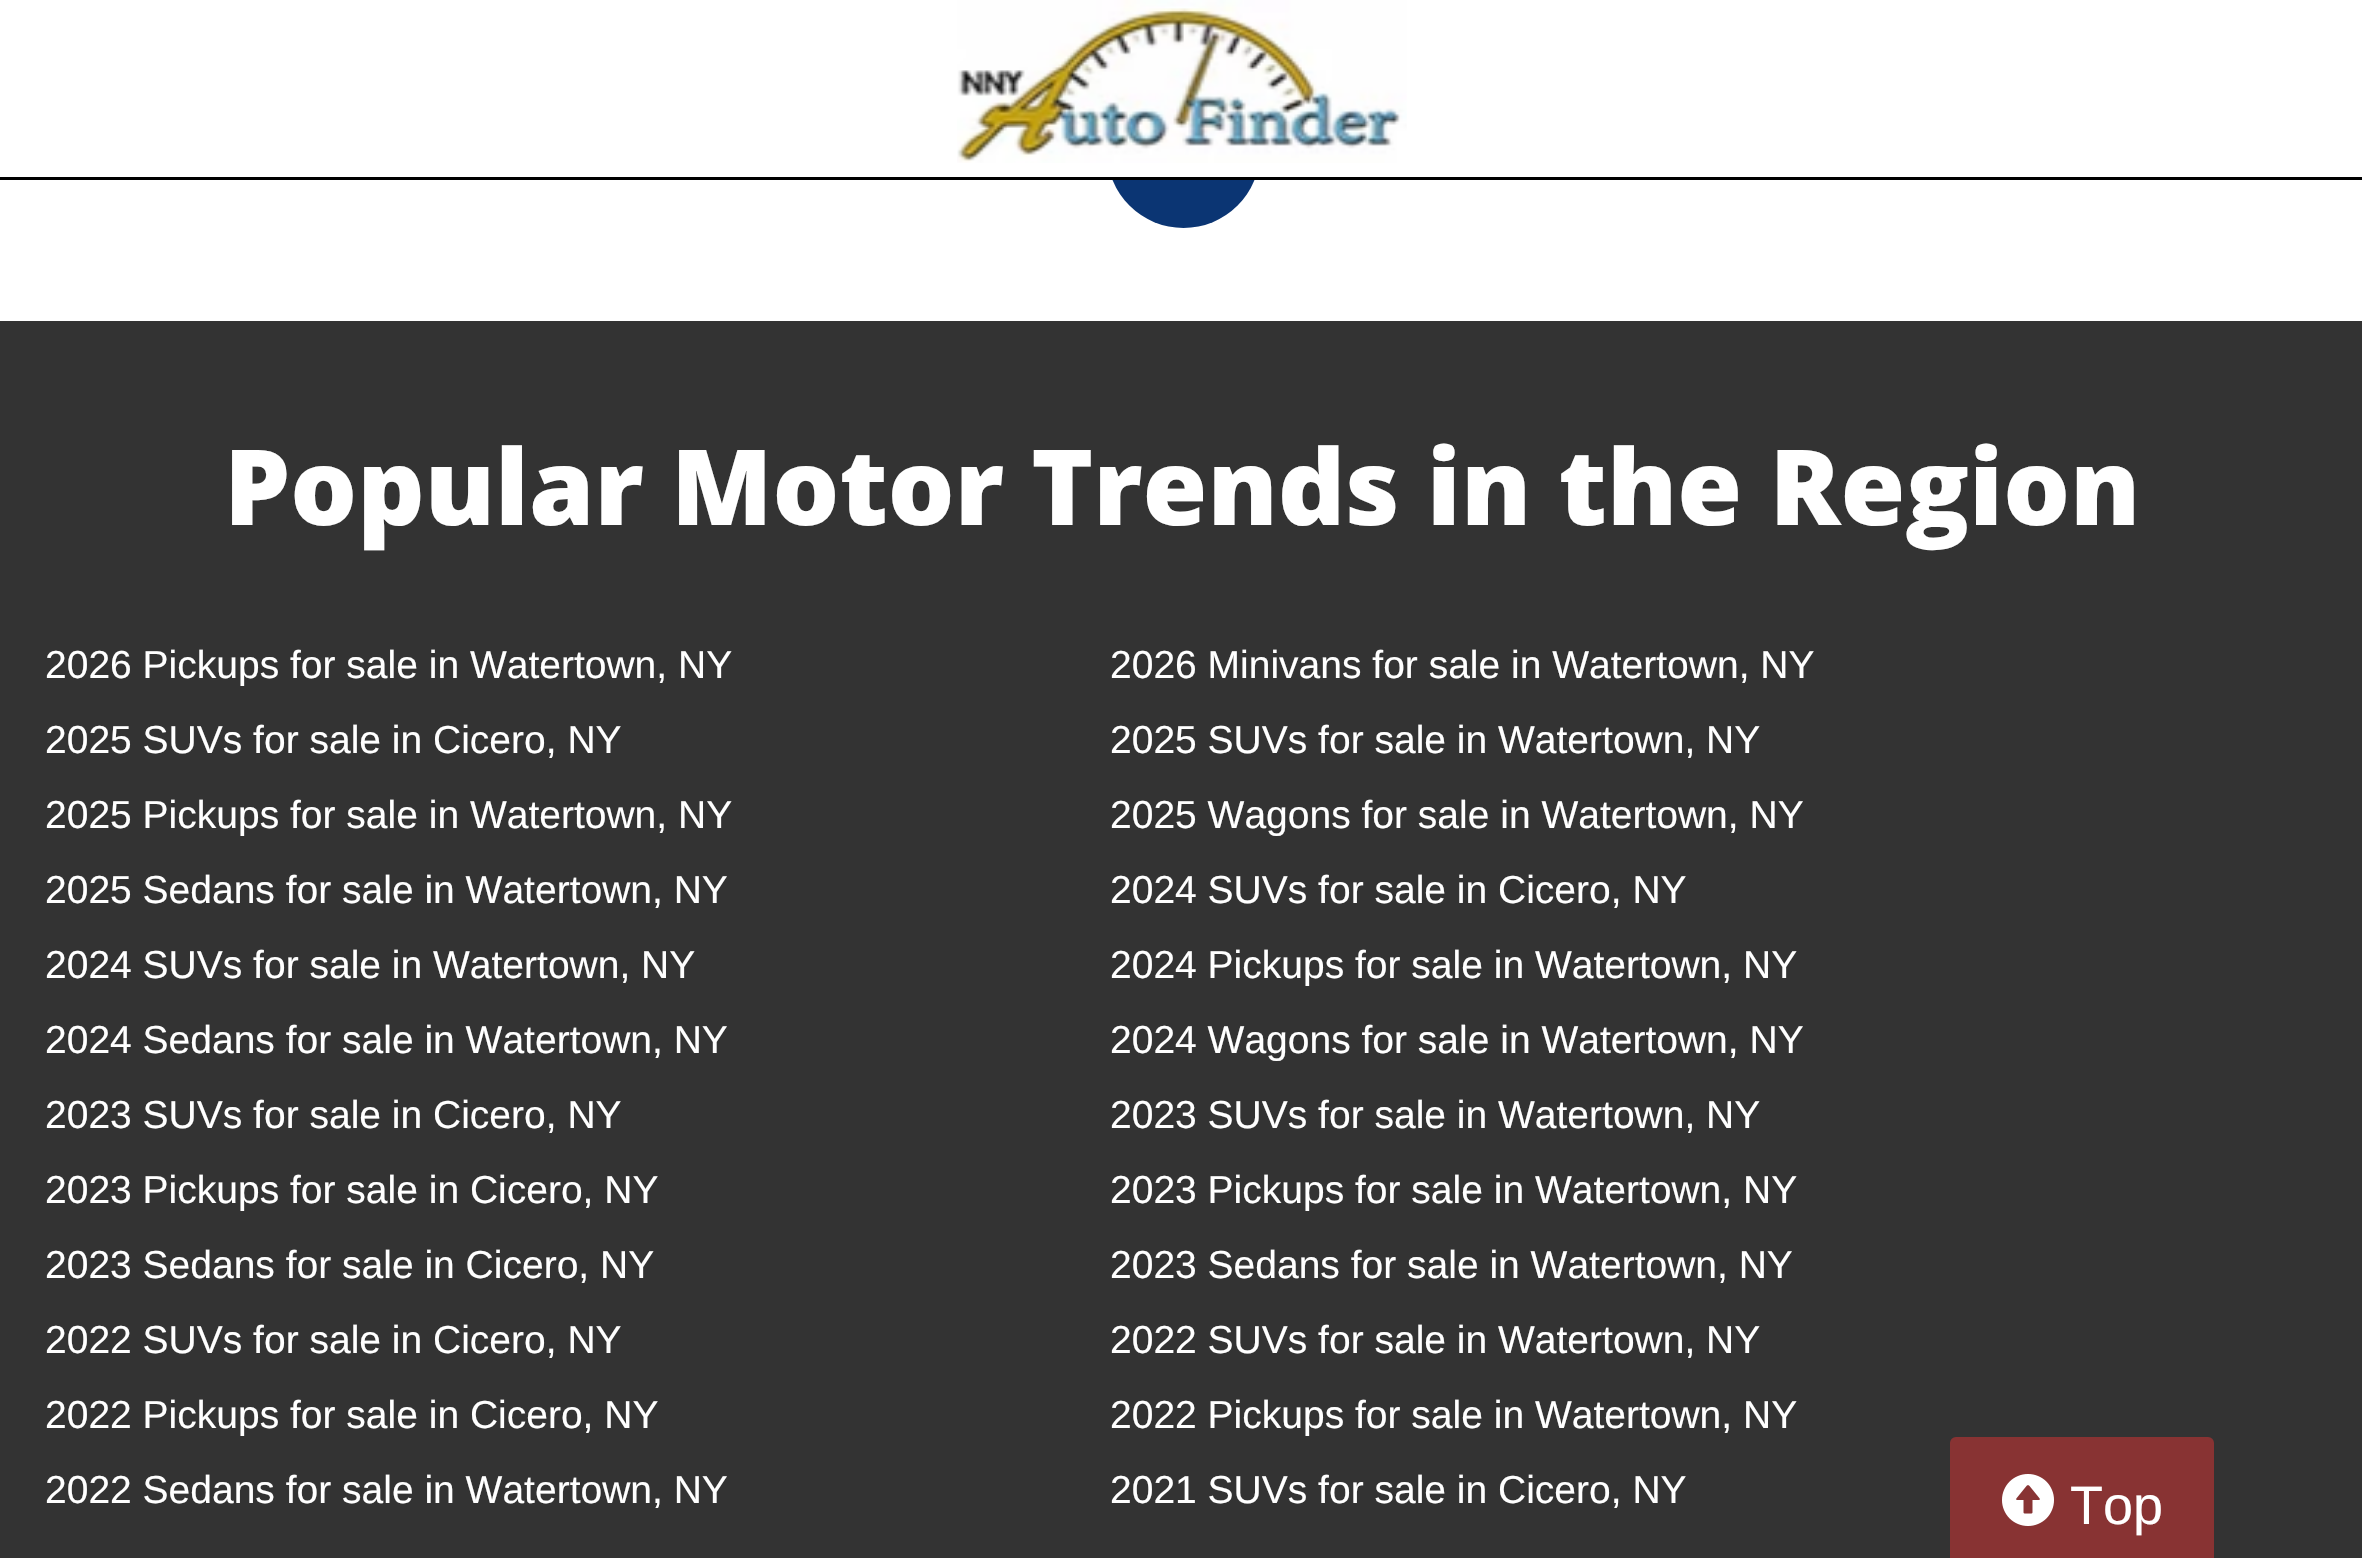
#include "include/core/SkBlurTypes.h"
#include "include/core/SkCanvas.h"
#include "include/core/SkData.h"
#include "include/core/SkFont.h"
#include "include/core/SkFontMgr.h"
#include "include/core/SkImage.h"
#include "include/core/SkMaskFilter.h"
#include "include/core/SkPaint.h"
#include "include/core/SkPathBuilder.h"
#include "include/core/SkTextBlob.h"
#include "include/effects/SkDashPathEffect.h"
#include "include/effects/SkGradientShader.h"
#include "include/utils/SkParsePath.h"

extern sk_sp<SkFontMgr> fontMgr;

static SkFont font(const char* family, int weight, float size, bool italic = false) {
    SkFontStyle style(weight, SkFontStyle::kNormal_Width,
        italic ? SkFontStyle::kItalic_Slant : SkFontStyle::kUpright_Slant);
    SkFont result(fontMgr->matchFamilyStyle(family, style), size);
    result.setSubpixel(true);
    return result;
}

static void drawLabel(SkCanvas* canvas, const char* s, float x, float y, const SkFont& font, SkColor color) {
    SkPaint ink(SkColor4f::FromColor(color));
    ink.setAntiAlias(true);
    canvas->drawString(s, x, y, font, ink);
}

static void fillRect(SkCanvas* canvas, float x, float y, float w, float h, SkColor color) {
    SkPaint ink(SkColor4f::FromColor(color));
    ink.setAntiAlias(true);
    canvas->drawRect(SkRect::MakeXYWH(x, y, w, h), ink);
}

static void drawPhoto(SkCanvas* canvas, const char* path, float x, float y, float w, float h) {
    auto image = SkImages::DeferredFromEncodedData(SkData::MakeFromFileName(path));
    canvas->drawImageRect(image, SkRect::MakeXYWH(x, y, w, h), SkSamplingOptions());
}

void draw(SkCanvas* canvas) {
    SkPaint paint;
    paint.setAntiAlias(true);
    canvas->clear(0xFFFFFFFF);
    paint.setColor(0xFF0B3573);
    canvas->drawCircle(1183.5f, 151.5f, 76.5f, paint);
    fillRect(canvas, 1107, 75, 153, 102, 0xFFFFFFFF);
    drawPhoto(canvas, "assets/img1.png", 957, 0, 450, 163);
    fillRect(canvas, 0, 177, 2362, 3, 0xFF000000);
    fillRect(canvas, 0, 321, 2362, 1237, 0xFF333333);
    SkFont font1 = font("Open Sans", 800, 105);
    drawLabel(canvas, "Popular Motor Trends in the Region", 224, 525, font1, 0xFFFFFFFF);
    SkFont font2 = font("Liberation Sans", 400, 39);
    drawLabel(canvas, "2026 Pickups for sale in Watertown, NY", 45, 678, font2, 0xFFFFFFFF);
    drawLabel(canvas, "2026 Minivans for sale in Watertown, NY", 1110, 678, font2, 0xFFFFFFFF);
    drawLabel(canvas, "2025 SUVs for sale in Cicero, NY", 45, 753, font2, 0xFFFFFFFF);
    drawLabel(canvas, "2025 SUVs for sale in Watertown, NY", 1110, 753, font2, 0xFFFFFFFF);
    drawLabel(canvas, "2025 Pickups for sale in Watertown, NY", 45, 828, font2, 0xFFFFFFFF);
    drawLabel(canvas, "2025 Wagons for sale in Watertown, NY", 1110, 828, font2, 0xFFFFFFFF);
    drawLabel(canvas, "2025 Sedans for sale in Watertown, NY", 45, 903, font2, 0xFFFFFFFF);
    drawLabel(canvas, "2024 SUVs for sale in Cicero, NY", 1110, 903, font2, 0xFFFFFFFF);
    drawLabel(canvas, "2024 SUVs for sale in Watertown, NY", 45, 978, font2, 0xFFFFFFFF);
    drawLabel(canvas, "2024 Pickups for sale in Watertown, NY", 1110, 978, font2, 0xFFFFFFFF);
    drawLabel(canvas, "2024 Sedans for sale in Watertown, NY", 45, 1053, font2, 0xFFFFFFFF);
    drawLabel(canvas, "2024 Wagons for sale in Watertown, NY", 1110, 1053, font2, 0xFFFFFFFF);
    drawLabel(canvas, "2023 SUVs for sale in Cicero, NY", 45, 1128, font2, 0xFFFFFFFF);
    drawLabel(canvas, "2023 SUVs for sale in Watertown, NY", 1110, 1128, font2, 0xFFFFFFFF);
    drawLabel(canvas, "2023 Pickups for sale in Cicero, NY", 45, 1203, font2, 0xFFFFFFFF);
    drawLabel(canvas, "2023 Pickups for sale in Watertown, NY", 1110, 1203, font2, 0xFFFFFFFF);
    drawLabel(canvas, "2023 Sedans for sale in Cicero, NY", 45, 1278, font2, 0xFFFFFFFF);
    drawLabel(canvas, "2023 Sedans for sale in Watertown, NY", 1110, 1278, font2, 0xFFFFFFFF);
    drawLabel(canvas, "2022 SUVs for sale in Cicero, NY", 45, 1353, font2, 0xFFFFFFFF);
    drawLabel(canvas, "2022 SUVs for sale in Watertown, NY", 1110, 1353, font2, 0xFFFFFFFF);
    drawLabel(canvas, "2022 Pickups for sale in Cicero, NY", 45, 1428, font2, 0xFFFFFFFF);
    drawLabel(canvas, "2022 Pickups for sale in Watertown, NY", 1110, 1428, font2, 0xFFFFFFFF);
    drawLabel(canvas, "2022 Sedans for sale in Watertown, NY", 45, 1503, font2, 0xFFFFFFFF);
    drawLabel(canvas, "2021 SUVs for sale in Cicero, NY", 1110, 1503, font2, 0xFFFFFFFF);
    paint.setColor(0xFF883333);
    canvas->drawRoundRect(SkRect::MakeXYWH(1951.5f, 1438.5f, 261, 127), 4.5f, 4.5f, paint);
    paint.setStroke(true);
    paint.setStrokeWidth(3);
    canvas->drawRoundRect(SkRect::MakeXYWH(1951.5f, 1438.5f, 261, 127), 4.5f, 4.5f, paint);
    drawPhoto(canvas, "assets/img2.png", 2002, 1474, 52, 52);
    SkFont font3 = font("Liberation Sans", 400, 54);
    drawLabel(canvas, "Top", 2070, 1524, font3, 0xFFFFFFFF);
}
